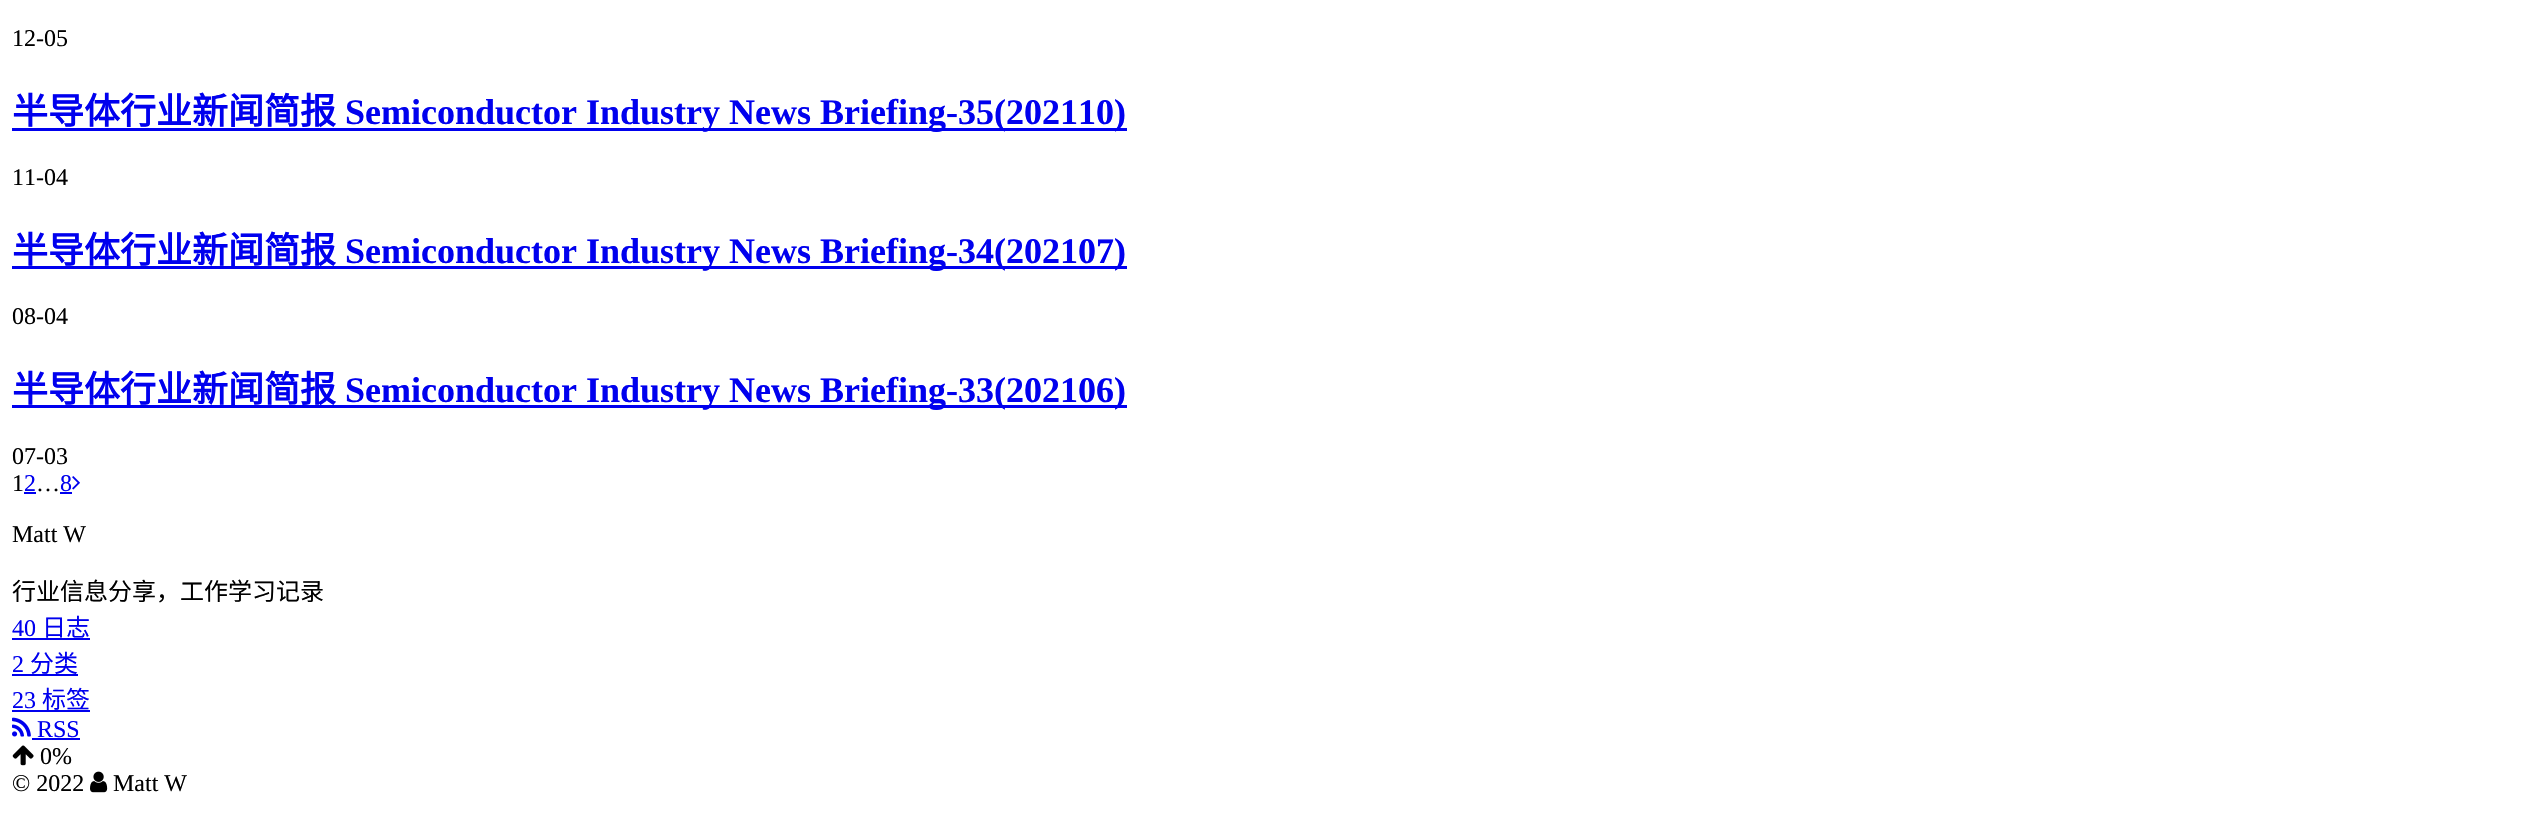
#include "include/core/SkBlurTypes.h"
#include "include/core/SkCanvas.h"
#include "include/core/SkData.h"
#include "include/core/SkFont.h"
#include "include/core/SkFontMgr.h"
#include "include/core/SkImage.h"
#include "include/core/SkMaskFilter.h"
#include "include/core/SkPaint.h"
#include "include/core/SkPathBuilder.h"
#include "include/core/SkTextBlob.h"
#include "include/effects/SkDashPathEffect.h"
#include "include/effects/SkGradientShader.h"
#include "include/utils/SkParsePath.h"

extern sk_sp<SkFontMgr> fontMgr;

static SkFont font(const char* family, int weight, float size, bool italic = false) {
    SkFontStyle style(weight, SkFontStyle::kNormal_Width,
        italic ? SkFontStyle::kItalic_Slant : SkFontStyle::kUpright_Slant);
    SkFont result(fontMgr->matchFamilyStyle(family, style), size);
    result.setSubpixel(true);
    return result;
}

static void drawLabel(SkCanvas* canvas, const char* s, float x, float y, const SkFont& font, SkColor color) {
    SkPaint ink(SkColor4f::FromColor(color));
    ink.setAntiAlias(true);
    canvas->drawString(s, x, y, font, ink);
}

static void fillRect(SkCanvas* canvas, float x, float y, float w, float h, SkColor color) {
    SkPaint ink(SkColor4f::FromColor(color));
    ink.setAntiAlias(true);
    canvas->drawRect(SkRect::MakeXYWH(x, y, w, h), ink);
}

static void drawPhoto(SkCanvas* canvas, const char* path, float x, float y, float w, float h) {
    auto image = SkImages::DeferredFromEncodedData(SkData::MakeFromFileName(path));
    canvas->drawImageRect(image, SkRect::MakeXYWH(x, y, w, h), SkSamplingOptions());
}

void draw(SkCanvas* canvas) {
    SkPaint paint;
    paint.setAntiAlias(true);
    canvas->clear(0xFFFFFFFF);
    SkFont font1 = font("Liberation Serif", 400, 24);
    drawLabel(canvas, "12-05", 12, 46, font1, 0xFF000000);
    SkFont font2 = font("Noto Sans CJK SC", 700, 36);
    drawLabel(canvas, "半导体行业新闻简报", 12, 124, font2, 0xFF0000EE);
    fillRect(canvas, 12, 128, 1115, 3, 0xFF0000EE);
    SkFont font3 = font("Liberation Serif", 700, 36);
    drawLabel(canvas, "Semiconductor Industry News Briefing-35(202110)", 345, 124, font3, 0xFF0000EE);
    drawLabel(canvas, "11-04", 12, 185, font1, 0xFF000000);
    drawLabel(canvas, "半导体行业新闻简报", 12, 263, font2, 0xFF0000EE);
    fillRect(canvas, 12, 266, 1115, 3, 0xFF0000EE);
    drawLabel(canvas, "Semiconductor Industry News Briefing-34(202107)", 345, 263, font3, 0xFF0000EE);
    drawLabel(canvas, "08-04", 12, 324, font1, 0xFF000000);
    drawLabel(canvas, "半导体行业新闻简报", 12, 402, font2, 0xFF0000EE);
    fillRect(canvas, 12, 405, 1115, 3, 0xFF0000EE);
    drawLabel(canvas, "Semiconductor Industry News Briefing-33(202106)", 345, 402, font3, 0xFF0000EE);
    drawLabel(canvas, "07-03", 12, 464, font1, 0xFF000000);
    drawLabel(canvas, "1", 12, 491, font1, 0xFF000000);
    drawLabel(canvas, "2", 24, 491, font1, 0xFF0000EE);
    fillRect(canvas, 24, 492, 12, 2, 0xFF0000EE);
    drawLabel(canvas, "…", 36, 491, font1, 0xFF000000);
    drawLabel(canvas, "8", 60, 491, font1, 0xFF0000EE);
    fillRect(canvas, 60, 492, 12, 2, 0xFF0000EE);
    drawPhoto(canvas, "assets/img1.png", 72, 476, 8, 14);
    drawLabel(canvas, "Matt W", 12, 542, font1, 0xFF000000);
    SkFont font4 = font("Noto Sans CJK SC", 400, 24);
    drawLabel(canvas, "行业信息分享，工作学习记录", 12, 600, font4, 0xFF000000);
    drawLabel(canvas, "40", 12, 636, font1, 0xFF0000EE);
    fillRect(canvas, 12, 638, 78, 2, 0xFF0000EE);
    drawLabel(canvas, "日志", 42, 636, font4, 0xFF0000EE);
    drawLabel(canvas, "2", 12, 672, font1, 0xFF0000EE);
    fillRect(canvas, 12, 674, 66, 2, 0xFF0000EE);
    drawLabel(canvas, "分类", 30, 672, font4, 0xFF0000EE);
    drawLabel(canvas, "23", 12, 708, font1, 0xFF0000EE);
    fillRect(canvas, 12, 710, 78, 2, 0xFF0000EE);
    drawLabel(canvas, "标签", 42, 708, font4, 0xFF0000EE);
    drawPhoto(canvas, "assets/img2.png", 12, 717, 19, 20);
    drawLabel(canvas, "RSS", 37, 737, font1, 0xFF0000EE);
    fillRect(canvas, 32, 738, 48, 2, 0xFF0000EE);
    drawPhoto(canvas, "assets/img3.png", 12, 745, 22, 21);
    drawLabel(canvas, "0%", 40, 764, font1, 0xFF000000);
    drawLabel(canvas, "© 2022", 12, 791, font1, 0xFF000000);
    drawPhoto(canvas, "assets/img4.png", 90, 771, 18, 22);
    drawLabel(canvas, "Matt W", 113, 791, font1, 0xFF000000);
}
